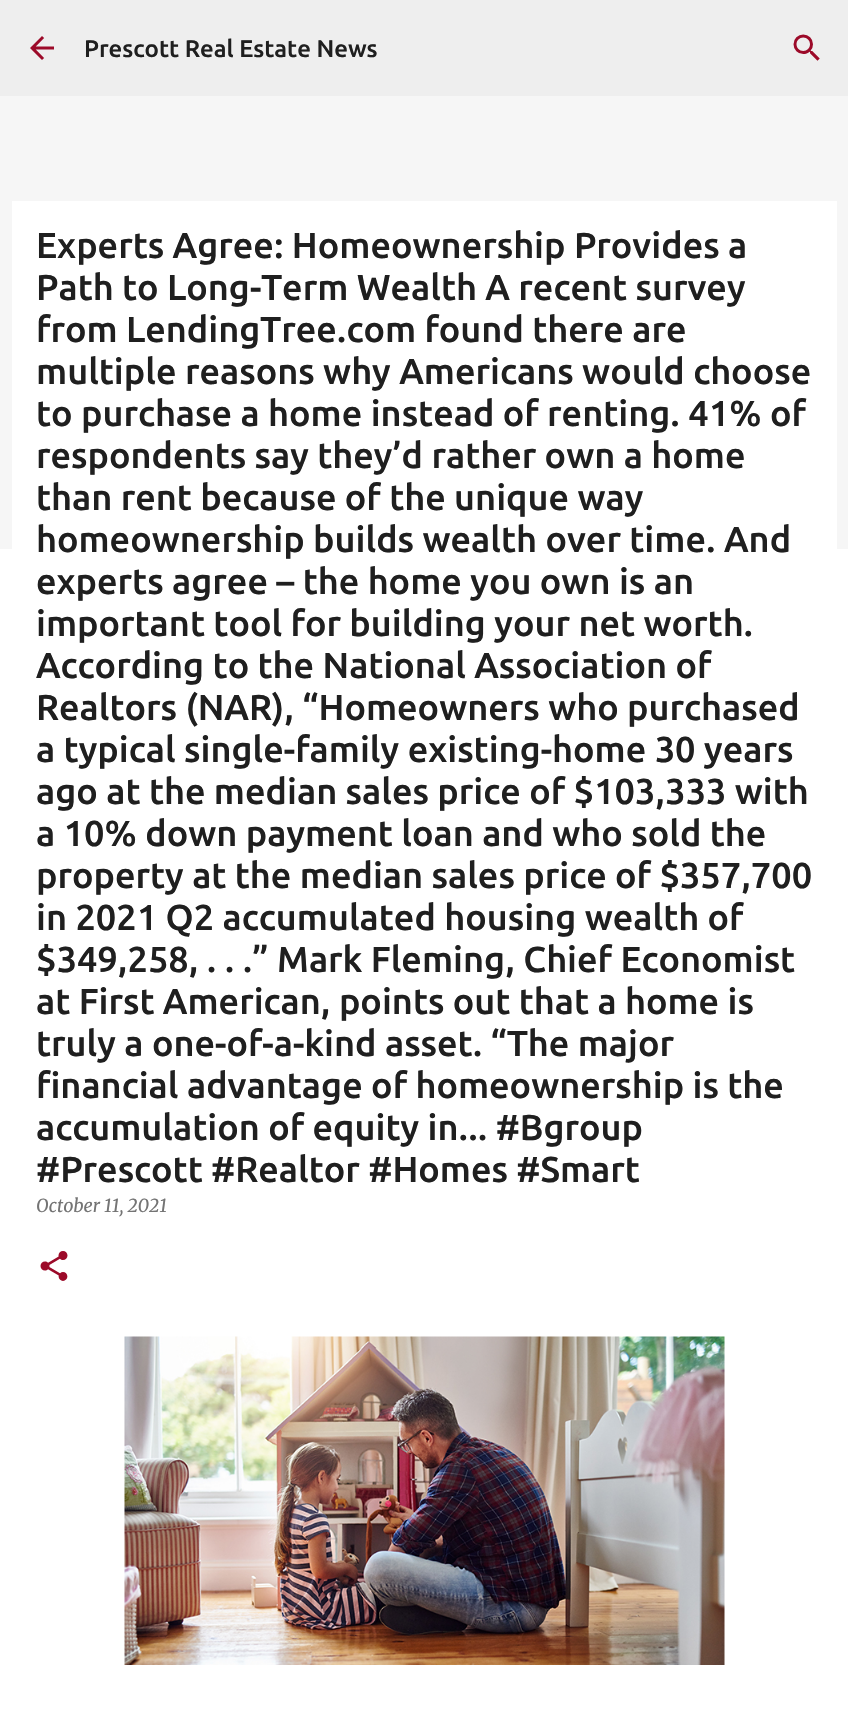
#include "include/core/SkBlurTypes.h"
#include "include/core/SkCanvas.h"
#include "include/core/SkData.h"
#include "include/core/SkFont.h"
#include "include/core/SkFontMgr.h"
#include "include/core/SkImage.h"
#include "include/core/SkMaskFilter.h"
#include "include/core/SkPaint.h"
#include "include/core/SkPathBuilder.h"
#include "include/core/SkTextBlob.h"
#include "include/effects/SkDashPathEffect.h"
#include "include/effects/SkGradientShader.h"
#include "include/utils/SkParsePath.h"

extern sk_sp<SkFontMgr> fontMgr;

static SkFont font(const char* family, int weight, float size, bool italic = false) {
    SkFontStyle style(weight, SkFontStyle::kNormal_Width,
        italic ? SkFontStyle::kItalic_Slant : SkFontStyle::kUpright_Slant);
    SkFont result(fontMgr->matchFamilyStyle(family, style), size);
    result.setSubpixel(true);
    return result;
}

static void drawLabel(SkCanvas* canvas, const char* s, float x, float y, const SkFont& font, SkColor color) {
    SkPaint ink(SkColor4f::FromColor(color));
    ink.setAntiAlias(true);
    canvas->drawString(s, x, y, font, ink);
}

static void fillRect(SkCanvas* canvas, float x, float y, float w, float h, SkColor color) {
    SkPaint ink(SkColor4f::FromColor(color));
    ink.setAntiAlias(true);
    canvas->drawRect(SkRect::MakeXYWH(x, y, w, h), ink);
}

static void drawPhoto(SkCanvas* canvas, const char* path, float x, float y, float w, float h) {
    auto image = SkImages::DeferredFromEncodedData(SkData::MakeFromFileName(path));
    canvas->drawImageRect(image, SkRect::MakeXYWH(x, y, w, h), SkSamplingOptions());
}

void draw(SkCanvas* canvas) {
    SkPaint paint;
    paint.setAntiAlias(true);
    canvas->clear(0xFFF6F6F6);
    fillRect(canvas, 0, 0, 848, 96, 0xFFEEEEEE);
    drawPhoto(canvas, "assets/img1.png", 30, 36, 24, 24);
    SkFont font1 = font("Ubuntu", 500, 24);
    drawLabel(canvas, "Prescott Real Estate News", 84, 57, font1, 0xFF1F1F1F);
    drawPhoto(canvas, "assets/img2.png", 793, 34, 27, 27);
    fillRect(canvas, 0, 549, 848, 1166, 0xFFFFFFFF);
    fillRect(canvas, 12, 201, 825, 348, 0xFFFFFFFF);
    SkFont font2 = font("Ubuntu", 500, 36);
    drawLabel(canvas, "Experts Agree: Homeownership Provides a", 36, 258, font2, 0xFF1F1F1F);
    drawLabel(canvas, "Path to Long-Term Wealth A recent survey", 36, 300, font2, 0xFF1F1F1F);
    drawLabel(canvas, "from LendingTree.com found there are", 36, 342, font2, 0xFF1F1F1F);
    drawLabel(canvas, "multiple reasons why Americans would choose", 36, 384, font2, 0xFF1F1F1F);
    drawLabel(canvas, "to purchase a home instead of renting. 41% of", 36, 426, font2, 0xFF1F1F1F);
    drawLabel(canvas, "respondents say they’d rather own a home", 36, 468, font2, 0xFF1F1F1F);
    drawLabel(canvas, "than rent because of the unique way", 36, 510, font2, 0xFF1F1F1F);
    drawLabel(canvas, "homeownership builds wealth over time. And", 36, 552, font2, 0xFF1F1F1F);
    drawLabel(canvas, "experts agree – the home you own is an", 36, 594, font2, 0xFF1F1F1F);
    drawLabel(canvas, "important tool for building your net worth.", 36, 636, font2, 0xFF1F1F1F);
    drawLabel(canvas, "According to the National Association of", 36, 678, font2, 0xFF1F1F1F);
    drawLabel(canvas, "Realtors (NAR), “Homeowners who purchased", 36, 720, font2, 0xFF1F1F1F);
    drawLabel(canvas, "a typical single-family existing-home 30 years", 36, 762, font2, 0xFF1F1F1F);
    drawLabel(canvas, "ago at the median sales price of $103,333 with", 36, 804, font2, 0xFF1F1F1F);
    drawLabel(canvas, "a 10% down payment loan and who sold the", 36, 846, font2, 0xFF1F1F1F);
    drawLabel(canvas, "property at the median sales price of $357,700", 36, 888, font2, 0xFF1F1F1F);
    drawLabel(canvas, "in 2021 Q2 accumulated housing wealth of", 36, 930, font2, 0xFF1F1F1F);
    drawLabel(canvas, "$349,258, . . .” Mark Fleming, Chief Economist", 36, 972, font2, 0xFF1F1F1F);
    drawLabel(canvas, "at First American, points out that a home is", 36, 1014, font2, 0xFF1F1F1F);
    drawLabel(canvas, "truly a one-of-a-kind asset. “The major", 36, 1056, font2, 0xFF1F1F1F);
    drawLabel(canvas, "financial advantage of homeownership is the", 36, 1098, font2, 0xFF1F1F1F);
    drawLabel(canvas, "accumulation of equity in... #Bgroup", 36, 1140, font2, 0xFF1F1F1F);
    drawLabel(canvas, "#Prescott #Realtor #Homes #Smart", 36, 1182, font2, 0xFF1F1F1F);
    SkFont font3 = font("Merriweather", 400, 18, true);
    drawLabel(canvas, "October 11, 2021", 36, 1212, font3, 0xFF747474);
    drawPhoto(canvas, "assets/img3.png", 40, 1251, 28, 30);
    drawPhoto(canvas, "assets/img4.png", 124, 1336, 601, 329);
}
